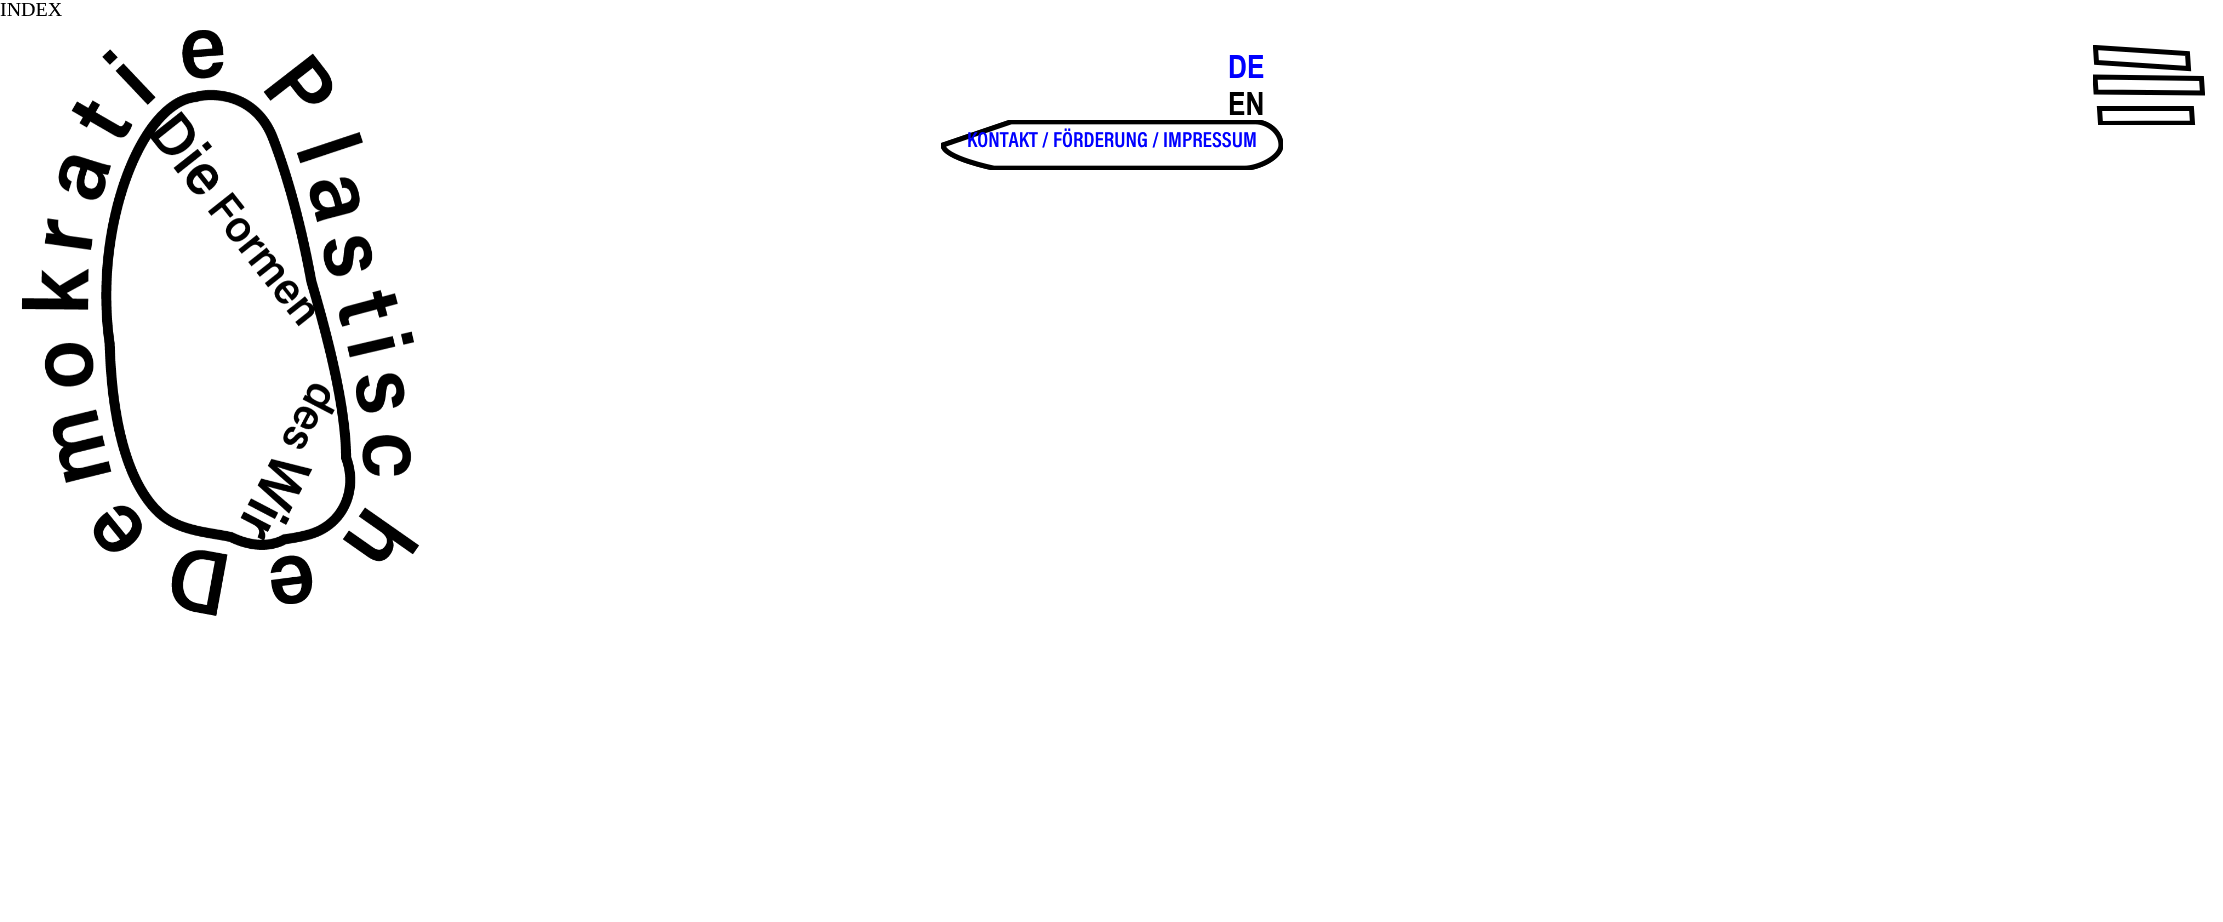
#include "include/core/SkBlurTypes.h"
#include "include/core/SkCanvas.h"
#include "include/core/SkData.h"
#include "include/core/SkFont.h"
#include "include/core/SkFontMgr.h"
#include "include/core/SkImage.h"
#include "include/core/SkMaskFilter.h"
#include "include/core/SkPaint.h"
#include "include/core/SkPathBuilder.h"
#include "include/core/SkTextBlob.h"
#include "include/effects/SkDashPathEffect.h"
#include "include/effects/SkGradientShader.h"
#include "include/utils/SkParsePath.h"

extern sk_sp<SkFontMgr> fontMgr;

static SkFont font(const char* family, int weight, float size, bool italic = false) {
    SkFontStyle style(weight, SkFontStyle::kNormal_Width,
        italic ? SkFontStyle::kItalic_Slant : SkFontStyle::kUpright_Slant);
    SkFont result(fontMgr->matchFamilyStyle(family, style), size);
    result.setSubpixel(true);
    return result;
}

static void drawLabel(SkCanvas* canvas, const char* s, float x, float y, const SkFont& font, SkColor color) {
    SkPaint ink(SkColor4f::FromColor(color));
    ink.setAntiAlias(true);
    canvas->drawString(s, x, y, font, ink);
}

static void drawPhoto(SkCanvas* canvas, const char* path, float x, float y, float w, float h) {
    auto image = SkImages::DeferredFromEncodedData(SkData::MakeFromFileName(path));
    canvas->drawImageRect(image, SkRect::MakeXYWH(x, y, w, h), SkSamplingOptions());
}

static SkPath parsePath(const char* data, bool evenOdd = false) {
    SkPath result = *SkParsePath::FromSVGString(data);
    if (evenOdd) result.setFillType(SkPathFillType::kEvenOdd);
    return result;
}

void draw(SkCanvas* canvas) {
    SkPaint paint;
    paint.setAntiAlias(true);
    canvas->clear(0xFFFFFFFF);
    SkFont font1 = font("Liberation Serif", 400, 20);
    drawLabel(canvas, "INDEX", 0, 16, font1, 0xFF000000);
    drawPhoto(canvas, "assets/img1.png", 21, 30, 399, 586);
    SkFont font2 = font("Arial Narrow", 700, 32);
    drawLabel(canvas, "DE", 1228, 78, font2, 0xFF0000FF);
    drawLabel(canvas, "EN", 1228, 115, font2, 0xFF000000);
    canvas->save();
    canvas->clipRect(SkRect::MakeXYWH(2093, 45, 112, 80));
    paint.setStroke(true);
    paint.setStrokeWidth(5);
    paint.setColor(0xFF000000);
    canvas->drawPath(parsePath("M2095.5 47.5L2096.5 62.5L2188.5 68.5L2187.5 53.5Z"), paint);
    canvas->drawPath(parsePath("M2095 77L2096 92L2202.5 93L2201.5 78.5Z"), paint);
    canvas->drawPath(parsePath("M2099.5 108.5L2100.5 123.5L2192.5 123L2191.5 108.5Z"), paint);
    canvas->restore();
    drawPhoto(canvas, "assets/img2.png", 941, 120, 342, 50);
    SkFont font3 = font("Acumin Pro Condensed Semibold", 600, 21.75f);
    drawLabel(canvas, "KONTAKT / FÖRDERUNG / IMPRESSUM", 967, 147, font3, 0xFF0000FF);
}
